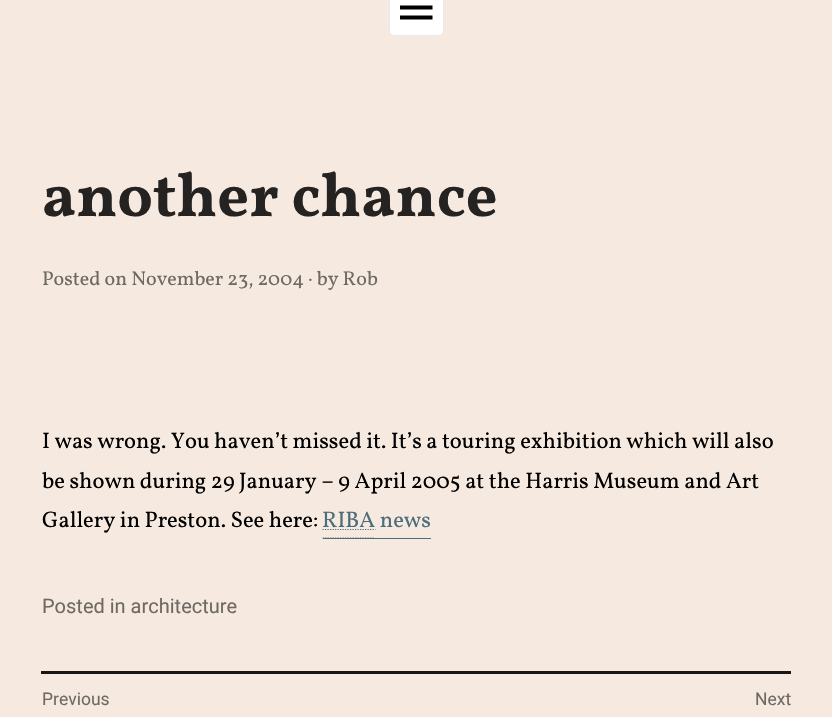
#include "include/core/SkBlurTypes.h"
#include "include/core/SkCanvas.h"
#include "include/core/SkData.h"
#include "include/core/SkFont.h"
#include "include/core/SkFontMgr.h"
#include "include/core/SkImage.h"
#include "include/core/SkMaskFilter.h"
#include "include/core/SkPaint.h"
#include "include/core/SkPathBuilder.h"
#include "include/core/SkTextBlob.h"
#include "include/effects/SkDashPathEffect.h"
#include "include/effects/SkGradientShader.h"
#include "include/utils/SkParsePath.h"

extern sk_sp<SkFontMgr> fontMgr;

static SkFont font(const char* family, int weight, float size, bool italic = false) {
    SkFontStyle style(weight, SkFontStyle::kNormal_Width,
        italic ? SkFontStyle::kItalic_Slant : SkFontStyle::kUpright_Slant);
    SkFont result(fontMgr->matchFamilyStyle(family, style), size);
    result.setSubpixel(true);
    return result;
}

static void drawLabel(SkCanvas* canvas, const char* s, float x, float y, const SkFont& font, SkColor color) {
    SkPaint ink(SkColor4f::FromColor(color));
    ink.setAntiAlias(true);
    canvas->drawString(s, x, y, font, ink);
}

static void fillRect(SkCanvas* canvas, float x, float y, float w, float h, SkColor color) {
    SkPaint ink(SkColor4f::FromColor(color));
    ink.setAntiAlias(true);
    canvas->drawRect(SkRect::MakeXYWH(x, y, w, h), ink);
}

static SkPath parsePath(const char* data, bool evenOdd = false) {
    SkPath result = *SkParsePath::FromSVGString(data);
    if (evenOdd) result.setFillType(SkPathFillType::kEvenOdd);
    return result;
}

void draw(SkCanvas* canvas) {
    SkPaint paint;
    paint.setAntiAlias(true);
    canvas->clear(0xFFF6E9DF);
    paint.setColor(0xFFFFFFFF);
    canvas->drawRoundRect(SkRect::MakeXYWH(389.5f, -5.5f, 54, 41), 4.5f, 4.5f, paint);
    paint.setStroke(true);
    paint.setStrokeWidth(1);
    paint.setColor(0xFFEAEAEA);
    canvas->drawRoundRect(SkRect::MakeXYWH(389.5f, -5.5f, 54, 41), 4.5f, 4.5f, paint);
    paint.setStroke(false);
    paint.setColor(0xFF000000);
    canvas->drawPath(parsePath("M400 19.5V15.5H432.5V19.5ZM400-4.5H432.5V-.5H400ZM400 9.5V5.5H432.5V9.5Z"), paint);
    SkFont font1 = font("Vollkorn", 700, 62.5f);
    drawLabel(canvas, "another chance", 42, 216, font1, 0xFF252321);
    SkFont font2 = font("Vollkorn", 400, 20);
    drawLabel(canvas, "Posted on November 23, 2004 · by Rob", 42, 285, font2, 0xFF6F6964);
    SkFont font3 = font("Vollkorn", 400, 22.5f);
    drawLabel(canvas, "I was wrong. You haven’t missed it. It’s a touring exhibition which will also", 42, 448, font3, 0xFF000000);
    drawLabel(canvas, "be shown during 29 January – 9 April 2005 at the Harris Museum and Art", 42, 488, font3, 0xFF000000);
    drawLabel(canvas, "Gallery in Preston. See here:", 42, 527, font3, 0xFF000000);
    drawLabel(canvas, "RIBA news", 322, 527, font3, 0xFF4E6D7C);
    fillRect(canvas, 323, 538, 108, 1, 0xFF4E6D7C);
    paint.setStroke(true);
    paint.setStrokeWidth(1.2f);
    paint.setColor(0xFF666666);
    paint.setPathEffect(SkDashPathEffect::Make({{1.25f, 1.25f}}, 0));
    canvas->drawPath(parsePath("M322.5 538H375"), paint);
    paint.setPathEffect(nullptr);
    paint.setColor(0xFF4E6D7C);
    paint.setPathEffect(SkDashPathEffect::Make({{1.25f, 1.25f}}, 0));
    canvas->drawPath(parsePath("M322.5 529.5H375.5"), paint);
    paint.setPathEffect(nullptr);
    SkFont font4 = font("Roboto", 400, 20);
    drawLabel(canvas, "Posted in architecture", 42, 613, font4, 0xFF6F6964);
    fillRect(canvas, 41, 671, 750, 3, 0xFF191716);
    SkFont font5 = font("Roboto", 400, 17.5f);
    drawLabel(canvas, "Previous", 42, 705, font5, 0xFF6F6964);
    drawLabel(canvas, "Next", 755, 705, font5, 0xFF6F6964);
}
